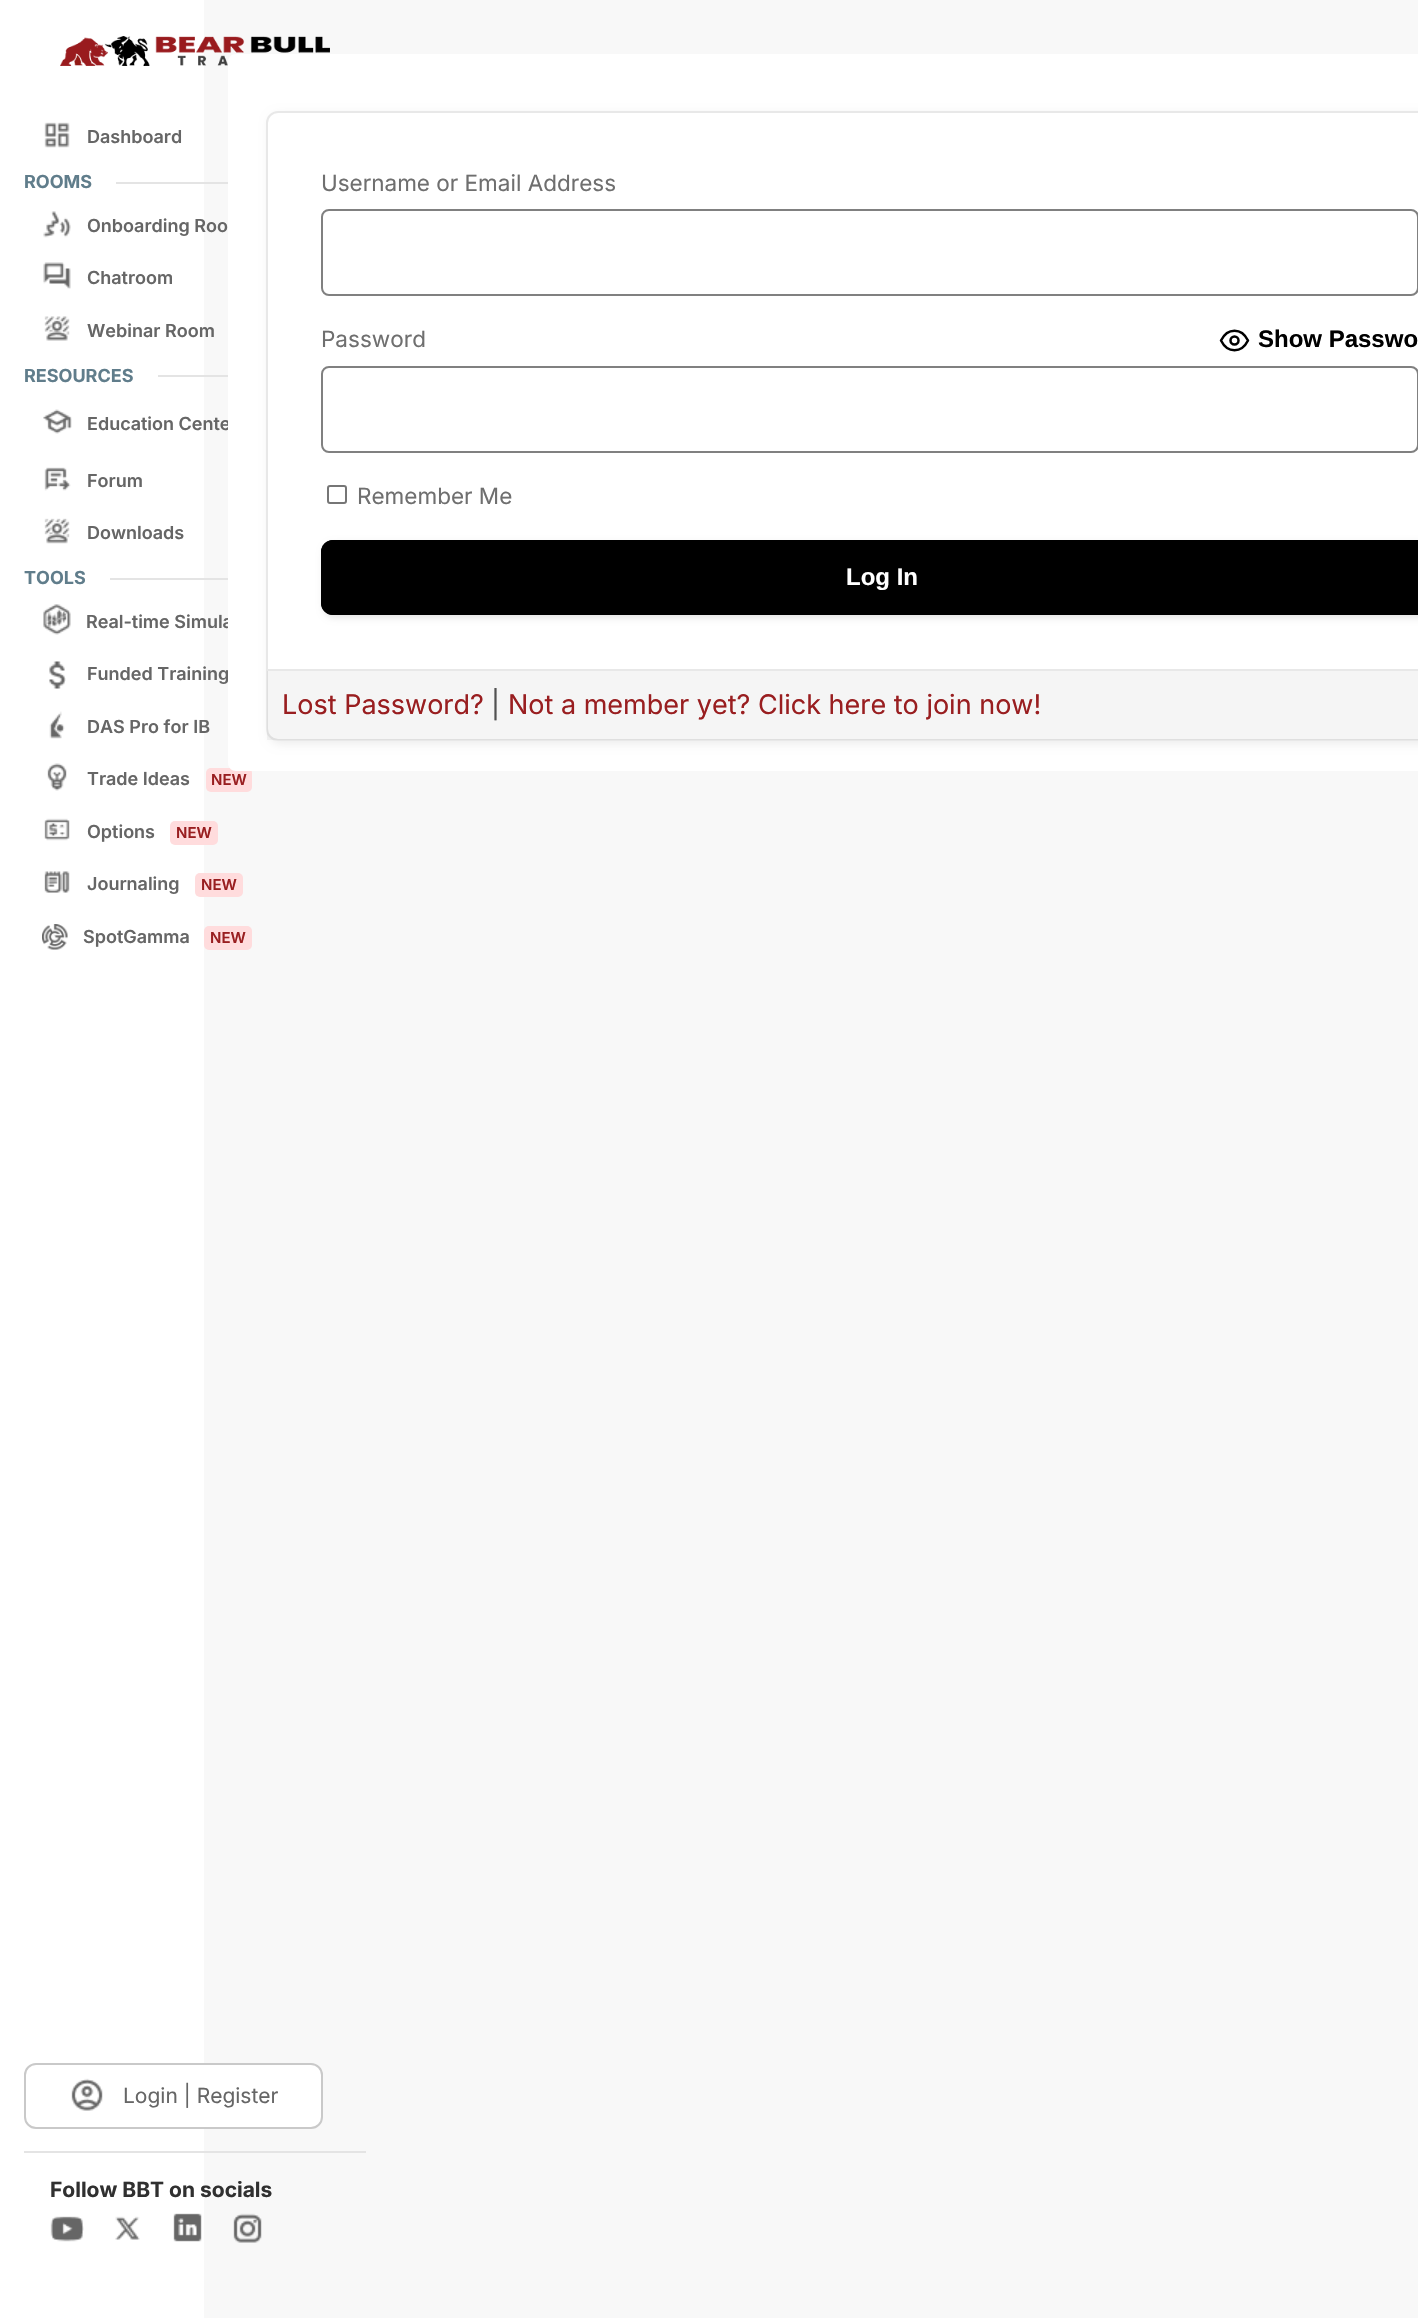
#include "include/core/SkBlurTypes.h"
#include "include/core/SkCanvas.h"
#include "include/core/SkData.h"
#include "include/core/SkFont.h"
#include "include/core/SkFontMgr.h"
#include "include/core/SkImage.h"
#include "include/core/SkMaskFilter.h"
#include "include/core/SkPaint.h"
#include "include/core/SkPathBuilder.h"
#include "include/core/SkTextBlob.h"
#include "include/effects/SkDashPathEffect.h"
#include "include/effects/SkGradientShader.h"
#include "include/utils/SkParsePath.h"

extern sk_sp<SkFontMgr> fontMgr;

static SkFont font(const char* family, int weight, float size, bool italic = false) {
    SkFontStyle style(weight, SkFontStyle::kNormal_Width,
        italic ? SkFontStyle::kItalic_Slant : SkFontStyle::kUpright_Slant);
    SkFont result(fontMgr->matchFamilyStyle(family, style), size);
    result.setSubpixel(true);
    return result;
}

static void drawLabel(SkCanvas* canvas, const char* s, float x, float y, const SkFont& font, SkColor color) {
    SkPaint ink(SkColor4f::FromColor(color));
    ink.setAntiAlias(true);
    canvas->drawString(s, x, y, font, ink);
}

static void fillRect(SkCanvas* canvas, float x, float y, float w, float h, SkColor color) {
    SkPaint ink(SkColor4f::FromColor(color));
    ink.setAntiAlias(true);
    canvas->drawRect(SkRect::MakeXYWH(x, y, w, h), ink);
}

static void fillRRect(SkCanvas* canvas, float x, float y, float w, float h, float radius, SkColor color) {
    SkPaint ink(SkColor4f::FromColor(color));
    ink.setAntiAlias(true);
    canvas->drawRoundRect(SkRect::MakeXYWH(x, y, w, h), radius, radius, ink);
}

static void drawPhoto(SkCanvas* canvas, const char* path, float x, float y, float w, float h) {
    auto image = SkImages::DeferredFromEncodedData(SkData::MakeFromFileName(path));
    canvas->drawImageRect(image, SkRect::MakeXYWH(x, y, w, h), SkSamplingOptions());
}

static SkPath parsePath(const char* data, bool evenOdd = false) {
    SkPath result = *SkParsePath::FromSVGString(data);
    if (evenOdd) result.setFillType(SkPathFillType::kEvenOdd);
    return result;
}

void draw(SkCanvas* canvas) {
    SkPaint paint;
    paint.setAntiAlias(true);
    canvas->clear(0xFFFFFFFF);
    fillRect(canvas, 204, 0, 1214, 2318, 0xFFF8F8F8);
    drawPhoto(canvas, "assets/img1.png", 60, 36, 270, 30);
    drawPhoto(canvas, "assets/img2.png", 44, 122, 26, 26);
    SkFont font1 = font("Inter", 600, 18);
    drawLabel(canvas, "Dashboard", 87, 143, font1, 0xFF666666);
    SkFont font2 = font("Inter", 700, 18);
    drawLabel(canvas, "ROOMS", 24, 188, font2, 0xFF607D8B);
    fillRect(canvas, 116, 182, 112, 2, 0xFFE4E4E4);
    drawPhoto(canvas, "assets/img3.png", 43, 211, 28, 27);
    drawLabel(canvas, "Onboarding Roo", 87, 232, font1, 0xFF666666);
    drawPhoto(canvas, "assets/img4.png", 43, 262, 28, 27);
    drawLabel(canvas, "Chatroom", 87, 284, font1, 0xFF666666);
    drawPhoto(canvas, "assets/img5.png", 44, 316, 26, 25);
    drawLabel(canvas, "Webinar Room", 87, 337, font1, 0xFF666666);
    drawLabel(canvas, "RESOURCES", 24, 382, font2, 0xFF607D8B);
    fillRect(canvas, 158, 375, 70, 2, 0xFFE4E4E4);
    drawPhoto(canvas, "assets/img6.png", 43, 409, 29, 25);
    drawLabel(canvas, "Education Cente", 87, 430, font1, 0xFF666666);
    drawPhoto(canvas, "assets/img7.png", 44, 467, 27, 24);
    drawLabel(canvas, "Forum", 87, 487, font1, 0xFF666666);
    drawPhoto(canvas, "assets/img8.png", 44, 518, 26, 26);
    drawLabel(canvas, "Downloads", 87, 539, font1, 0xFF666666);
    drawLabel(canvas, "TOOLS", 24, 584, font2, 0xFF607D8B);
    fillRect(canvas, 110, 578, 118, 2, 0xFFE4E4E4);
    drawPhoto(canvas, "assets/img9.png", 43, 604, 28, 31);
    drawLabel(canvas, "Real-time Simula", 86, 628, font1, 0xFF666666);
    drawPhoto(canvas, "assets/img10.png", 49, 661, 17, 28);
    drawLabel(canvas, "Funded Training", 87, 680, font1, 0xFF666666);
    drawPhoto(canvas, "assets/img11.png", 49, 711, 16, 28);
    drawLabel(canvas, "DAS Pro for IB", 87, 733, font1, 0xFF666666);
    drawPhoto(canvas, "assets/img12.png", 47, 763, 20, 28);
    drawLabel(canvas, "Trade Ideas", 87, 785, font1, 0xFF666666);
    fillRRect(canvas, 206, 768, 46, 24, 5, 0xFFFFDCDD);
    SkFont font3 = font("Inter", 600, 15);
    drawLabel(canvas, "NEW", 211, 785, font3, 0xFF991E20);
    drawPhoto(canvas, "assets/img13.png", 44, 818, 26, 23);
    drawLabel(canvas, "Options", 87, 838, font1, 0xFF666666);
    fillRRect(canvas, 170, 821, 48, 24, 5, 0xFFFFDCDD);
    drawLabel(canvas, "NEW", 176, 838, font3, 0xFF991E20);
    drawPhoto(canvas, "assets/img14.png", 44, 871, 26, 22);
    drawLabel(canvas, "Journaling", 87, 890, font1, 0xFF666666);
    fillRRect(canvas, 195, 873, 48, 24, 5, 0xFFFFDCDD);
    drawLabel(canvas, "NEW", 201, 890, font3, 0xFF991E20);
    drawPhoto(canvas, "assets/img15.png", 42, 924, 26, 26);
    drawLabel(canvas, "SpotGamma", 83, 943, font1, 0xFF666666);
    fillRRect(canvas, 204, 926, 48, 24, 5, 0xFFFFDCDD);
    drawLabel(canvas, "NEW", 210, 943, font3, 0xFF991E20);
    fillRect(canvas, 24, 2151, 342, 2, 0xFFE4E4E4);
    paint.setColor(0xFFFFFFFF);
    canvas->drawRoundRect(SkRect::MakeXYWH(25, 2064, 297, 64), 11, 11, paint);
    paint.setStroke(true);
    paint.setStrokeWidth(2);
    paint.setColor(0xFFC9C9C9);
    canvas->drawRoundRect(SkRect::MakeXYWH(25, 2064, 297, 64), 11, 11, paint);
    drawPhoto(canvas, "assets/img16.png", 71, 2078, 32, 33);
    SkFont font4 = font("Inter", 400, 21);
    drawLabel(canvas, "Login | Register", 123, 2103, font4, 0xFF666666);
    SkFont font5 = font("Inter", 700, 21);
    drawLabel(canvas, "Follow BBT on socials", 50, 2197, font5, 0xFF303030);
    drawPhoto(canvas, "assets/img17.png", 50, 2216, 34, 26);
    drawPhoto(canvas, "assets/img18.png", 115, 2216, 25, 24);
    drawPhoto(canvas, "assets/img19.png", 173, 2213, 29, 29);
    drawPhoto(canvas, "assets/img20.png", 233, 2213, 29, 30);
    paint.setStroke(false);
    paint.setColor(0xFFFFFFFF);
    canvas->drawPath(parsePath("M236 54H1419V771H236C231.5 771 228 767.5 228 763V62C228 57.5 231.5 54 236 54Z"), paint);
    paint.setColor(0x12000000);
    paint.setMaskFilter(SkMaskFilter::MakeBlur(kNormal_SkBlurStyle, 5));
    canvas->drawRoundRect(SkRect::MakeXYWH(269, 114, 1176, 630), 12, 12, paint);
    paint.setMaskFilter(nullptr);
    paint.setColor(0xFFFFFFFF);
    canvas->drawPath(parsePath("M278 111H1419V741H278C271.5 741 266 735.5 266 729V123C266 116.5 271.5 111 278 111Z"), paint);
    paint.setStroke(true);
    paint.setColor(0xFFE8E8E8);
    canvas->drawRoundRect(SkRect::MakeXYWH(267, 112, 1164, 628), 11, 11, paint);
    SkFont font6 = font("Inter", 400, 22.5f);
    drawLabel(canvas, "Username or Email Address", 321, 191, font6, 0xFF6F6F6F);
    paint.setColor(0xFF808080);
    canvas->drawRoundRect(SkRect::MakeXYWH(322, 210, 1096, 85), 7, 7, paint);
    drawLabel(canvas, "Password", 321, 347, font6, 0xFF6F6F6F);
    paint.setStrokeWidth(2.5f);
    paint.setStrokeCap(SkPaint::kRound_Cap);
    paint.setStrokeJoin(SkPaint::kRound_Join);
    paint.setColor(0xFF000000);
    canvas->drawPath(parsePath("M1221 340.5C1227.5 327.5 1241.5 327.5 1248 340.5C1241.5 353.5 1227.5 353.5 1221 340.5Z"), paint);
    paint.setStrokeCap(SkPaint::kButt_Cap);
    paint.setStrokeJoin(SkPaint::kMiter_Join);
    canvas->drawCircle(1234.5f, 340.5f, 4, paint);
    SkFont font7 = font("Liberation Sans", 700, 24);
    drawLabel(canvas, "Show Passwo", 1258, 347, font7, 0xFF000000);
    paint.setStrokeWidth(2);
    paint.setColor(0xFF808080);
    canvas->drawRoundRect(SkRect::MakeXYWH(322, 367, 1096, 85), 7, 7, paint);
    paint.setColor(0xFF767676);
    canvas->drawRoundRect(SkRect::MakeXYWH(328, 486, 18, 17), 2, 2, paint);
    drawLabel(canvas, "Remember Me", 357, 504, font6, 0xFF6F6F6F);
    paint.setStroke(false);
    paint.setColor(0x1A000000);
    paint.setMaskFilter(SkMaskFilter::MakeBlur(kNormal_SkBlurStyle, 3));
    canvas->drawRoundRect(SkRect::MakeXYWH(323, 543, 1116, 75), 12, 12, paint);
    paint.setMaskFilter(nullptr);
    paint.setColor(0xFF000000);
    canvas->drawPath(parsePath("M333 540H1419V615H333C326.5 615 321 609.5 321 603V552C321 545.5 326.5 540 333 540Z"), paint);
    paint.setStroke(true);
    canvas->drawRoundRect(SkRect::MakeXYWH(322, 541, 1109, 73), 11, 11, paint);
    drawLabel(canvas, "Log In", 846, 585, font7, 0xFFFFFFFF);
    fillRect(canvas, 267, 671, 1151, 69, 0x0A000000);
    fillRect(canvas, 267, 669, 1151, 2, 0xFFE8E8E8);
    SkFont font8 = font("Inter", 400, 27);
    drawLabel(canvas, "Lost Password?", 282, 714, font8, 0xFF991E20);
    drawLabel(canvas, "|", 491, 714, font8, 0xFF525252);
    drawLabel(canvas, "Not a member yet? Click here to join now!", 508, 714, font8, 0xFF991E20);
}
